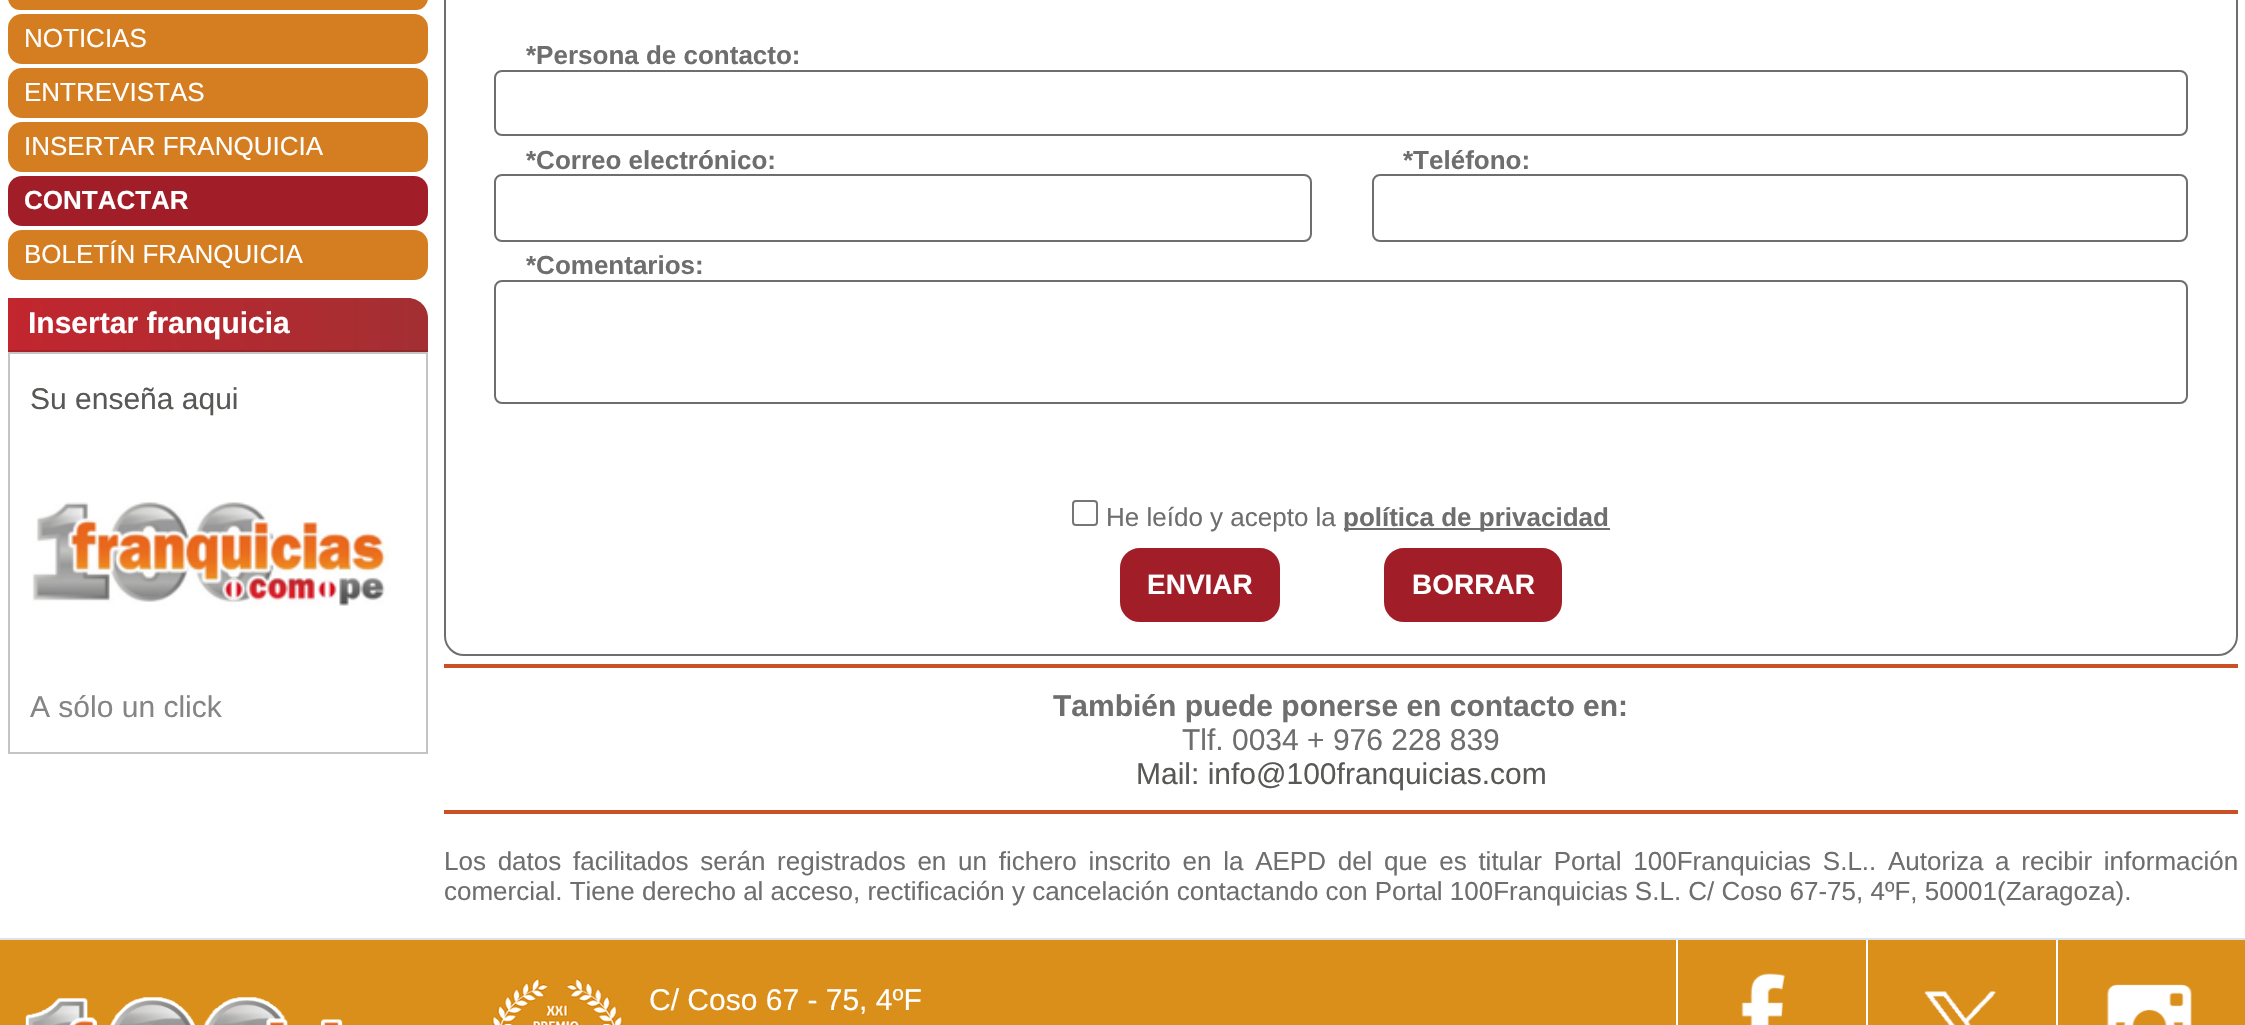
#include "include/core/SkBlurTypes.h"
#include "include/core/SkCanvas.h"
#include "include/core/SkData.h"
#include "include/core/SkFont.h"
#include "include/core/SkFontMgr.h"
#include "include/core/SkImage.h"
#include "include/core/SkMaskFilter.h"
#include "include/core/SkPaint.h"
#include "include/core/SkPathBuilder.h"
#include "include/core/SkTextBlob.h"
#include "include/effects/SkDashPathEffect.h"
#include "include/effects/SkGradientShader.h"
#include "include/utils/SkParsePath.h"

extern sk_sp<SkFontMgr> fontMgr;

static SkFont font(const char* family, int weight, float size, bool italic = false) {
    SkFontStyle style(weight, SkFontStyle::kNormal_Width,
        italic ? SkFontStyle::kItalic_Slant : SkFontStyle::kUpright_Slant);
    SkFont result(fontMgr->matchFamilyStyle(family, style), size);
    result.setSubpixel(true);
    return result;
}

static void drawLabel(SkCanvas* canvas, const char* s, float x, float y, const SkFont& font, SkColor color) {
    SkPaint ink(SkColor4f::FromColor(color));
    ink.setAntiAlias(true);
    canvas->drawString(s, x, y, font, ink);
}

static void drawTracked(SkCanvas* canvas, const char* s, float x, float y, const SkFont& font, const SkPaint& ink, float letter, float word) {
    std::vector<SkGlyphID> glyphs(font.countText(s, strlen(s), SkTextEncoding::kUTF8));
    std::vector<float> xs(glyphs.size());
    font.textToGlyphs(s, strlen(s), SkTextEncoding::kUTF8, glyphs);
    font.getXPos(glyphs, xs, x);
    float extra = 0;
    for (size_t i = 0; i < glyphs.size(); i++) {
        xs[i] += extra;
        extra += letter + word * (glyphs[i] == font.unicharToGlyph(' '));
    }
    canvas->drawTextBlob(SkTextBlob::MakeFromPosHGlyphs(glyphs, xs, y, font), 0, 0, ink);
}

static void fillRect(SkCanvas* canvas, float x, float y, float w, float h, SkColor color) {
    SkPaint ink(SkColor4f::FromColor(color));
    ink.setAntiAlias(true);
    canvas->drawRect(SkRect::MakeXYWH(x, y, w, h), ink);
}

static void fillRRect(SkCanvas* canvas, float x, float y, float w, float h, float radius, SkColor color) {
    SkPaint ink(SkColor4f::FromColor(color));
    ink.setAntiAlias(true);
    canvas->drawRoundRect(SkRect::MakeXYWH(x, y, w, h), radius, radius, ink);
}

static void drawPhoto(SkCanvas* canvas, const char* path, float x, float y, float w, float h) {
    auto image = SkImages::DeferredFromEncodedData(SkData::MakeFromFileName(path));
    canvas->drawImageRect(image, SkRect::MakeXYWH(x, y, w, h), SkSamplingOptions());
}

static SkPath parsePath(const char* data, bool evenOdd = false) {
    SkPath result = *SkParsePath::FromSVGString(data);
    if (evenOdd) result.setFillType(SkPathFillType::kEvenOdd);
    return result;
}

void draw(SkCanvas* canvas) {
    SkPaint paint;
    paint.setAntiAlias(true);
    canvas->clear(0xFFFFFFFF);
    fillRRect(canvas, 8, -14, 420, 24, 14, 0xFFD57D21);
    fillRRect(canvas, 8, 14, 420, 50, 14, 0xFFD57D21);
    SkFont font1 = font("Liberation Sans", 400, 26);
    drawLabel(canvas, "NOTICIAS", 24, 47, font1, 0xFFFFFFFF);
    fillRRect(canvas, 8, 68, 420, 50, 14, 0xFFD57D21);
    drawLabel(canvas, "ENTREVISTAS", 24, 101, font1, 0xFFFFFFFF);
    fillRRect(canvas, 8, 122, 420, 50, 14, 0xFFD57D21);
    drawLabel(canvas, "INSERTAR FRANQUICIA", 24, 155, font1, 0xFFFFFFFF);
    fillRRect(canvas, 8, 176, 420, 50, 14, 0xFFA11E28);
    SkFont font2 = font("Liberation Sans", 700, 26);
    drawLabel(canvas, "CONTACTAR", 24, 209, font2, 0xFFFFFFFF);
    fillRRect(canvas, 8, 230, 420, 50, 14, 0xFFD57D21);
    drawLabel(canvas, "BOLETÍN FRANQUICIA", 24, 263, font1, 0xFFFFFFFF);
    {
        const SkColor colors[] = {0xFFC2262F, 0xFFA32F32};
        const float stops[] = {0, 1};
        const SkPoint ends[] = {{8, 324}, {428, 324}};
        paint.setShader(SkGradientShader::MakeLinear(ends, colors, stops, 2, SkTileMode::kClamp));
        paint.setAlpha(255);
    }
    canvas->drawPath(parsePath("M8 298H408C419 298 428 307 428 318V352H8Z"), paint);
    {
        const SkColor colors[] = {0xFFAB2129, 0xFF8F292C};
        const float stops[] = {0, 1};
        const SkPoint ends[] = {{8, 324}, {428, 324}};
        paint.setShader(SkGradientShader::MakeLinear(ends, colors, stops, 2, SkTileMode::kClamp));
        paint.setAlpha(255);
    }
    canvas->drawRect(SkRect::MakeXYWH(8, 350, 420, 2), paint);
    SkFont font3 = font("Liberation Sans", 700, 30);
    drawLabel(canvas, "Insertar franquicia", 28, 333, font3, 0xFFFFFFFF);
    paint.setStroke(true);
    paint.setStrokeWidth(2);
    paint.setShader(nullptr);
    paint.setColor(0xFFC4C4C4);
    canvas->drawRect(SkRect::MakeXYWH(9, 353, 418, 400), paint);
    SkFont font4 = font("Liberation Sans", 400, 30);
    drawLabel(canvas, "Su enseña aqui", 30, 409, font4, 0xFF585857);
    drawPhoto(canvas, "assets/img1.png", 32, 502, 358, 104);
    drawLabel(canvas, "A sólo un click", 30, 717, font4, 0xFF858585);
    paint.setColor(0xFF6F6E6E);
    canvas->drawRoundRect(SkRect::MakeXYWH(445, -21, 1792, 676), 19, 19, paint);
    drawLabel(canvas, "*Persona de contacto:", 526, 64, font2, 0xFF6F6E6E);
    canvas->drawRoundRect(SkRect::MakeXYWH(495, 71, 1692, 64), 7, 7, paint);
    drawLabel(canvas, "*Correo electrónico:", 526, 169, font2, 0xFF6F6E6E);
    canvas->drawRoundRect(SkRect::MakeXYWH(495, 175, 816, 66), 7, 7, paint);
    drawLabel(canvas, "*Teléfono:", 1403, 169, font2, 0xFF6F6E6E);
    canvas->drawRoundRect(SkRect::MakeXYWH(1373, 175, 814, 66), 7, 7, paint);
    drawLabel(canvas, "*Comentarios:", 526, 274, font2, 0xFF6F6E6E);
    canvas->drawRoundRect(SkRect::MakeXYWH(495, 281, 1692, 122), 7, 7, paint);
    paint.setColor(0xFF767676);
    canvas->drawRoundRect(SkRect::MakeXYWH(1073, 501, 24, 24), 3, 3, paint);
    drawLabel(canvas, "He leído y acepto la", 1106, 526, font1, 0xFF6F6E6E);
    fillRect(canvas, 1344, 528, 266, 2, 0xFF6F6E6E);
    drawLabel(canvas, "política de privacidad", 1343, 526, font2, 0xFF6F6E6E);
    paint.setStroke(false);
    paint.setColor(0xFFA11E28);
    canvas->drawRoundRect(SkRect::MakeXYWH(1121, 549, 158, 72), 19, 19, paint);
    paint.setStroke(true);
    canvas->drawRoundRect(SkRect::MakeXYWH(1121, 549, 158, 72), 19, 19, paint);
    SkFont font5 = font("Liberation Sans", 700, 28);
    drawLabel(canvas, "ENVIAR", 1147, 594, font5, 0xFFFFFFFF);
    paint.setStroke(false);
    canvas->drawRoundRect(SkRect::MakeXYWH(1385, 549, 176, 72), 19, 19, paint);
    paint.setStroke(true);
    canvas->drawRoundRect(SkRect::MakeXYWH(1385, 549, 176, 72), 19, 19, paint);
    drawLabel(canvas, "BORRAR", 1412, 594, font5, 0xFFFFFFFF);
    fillRect(canvas, 444, 664, 1794, 4, 0xFFCA5026);
    fillRect(canvas, 444, 810, 1794, 4, 0xFFCA5026);
    drawLabel(canvas, "También puede ponerse en contacto en:", 1053, 716, font3, 0xFF6F6E6E);
    drawLabel(canvas, "Tlf. 0034 + 976 228 839", 1182, 750, font4, 0xFF6F6E6E);
    drawLabel(canvas, "Mail: info@100franquicias.com", 1136, 784, font4, 0xFF585857);
    paint.setStroke(false);
    paint.setColor(0xFF6F6E6E);
    drawTracked(canvas, "Los datos facilitados serán registrados en un fichero inscrito en la AEPD del que es titular Portal 100Franquicias S.L.. Autoriza a recibir información", 444, 870, font1, paint, 0, 4.5f);
    drawLabel(canvas, "comercial. Tiene derecho al acceso, rectificación y cancelación contactando con Portal 100Franquicias S.L. C/ Coso 67-75, 4ºF, 50001(Zaragoza).", 444, 900, font1, 0xFF6F6E6E);
    fillRect(canvas, 0, 940, 2245, 85, 0xFFDB8F1B);
    fillRect(canvas, 0, 938, 2245, 2, 0xFFDEE2E6);
    drawPhoto(canvas, "assets/img2.png", 25, 997, 318, 28);
    drawPhoto(canvas, "assets/img3.png", 491, 978, 132, 47);
    drawLabel(canvas, "C/ Coso 67 - 75, 4ºF", 649, 1010, font4, 0xFFFFFFFF);
    fillRect(canvas, 1676, 940, 2, 85, 0xFFFFFFFF);
    drawPhoto(canvas, "assets/img4.png", 1741, 973, 44, 52);
    fillRect(canvas, 1866, 940, 2, 85, 0xFFFFFFFF);
    drawPhoto(canvas, "assets/img5.png", 1924, 991, 72, 34);
    fillRect(canvas, 2056, 940, 2, 85, 0xFFFFFFFF);
    drawPhoto(canvas, "assets/img6.png", 2106, 984, 86, 41);
}
